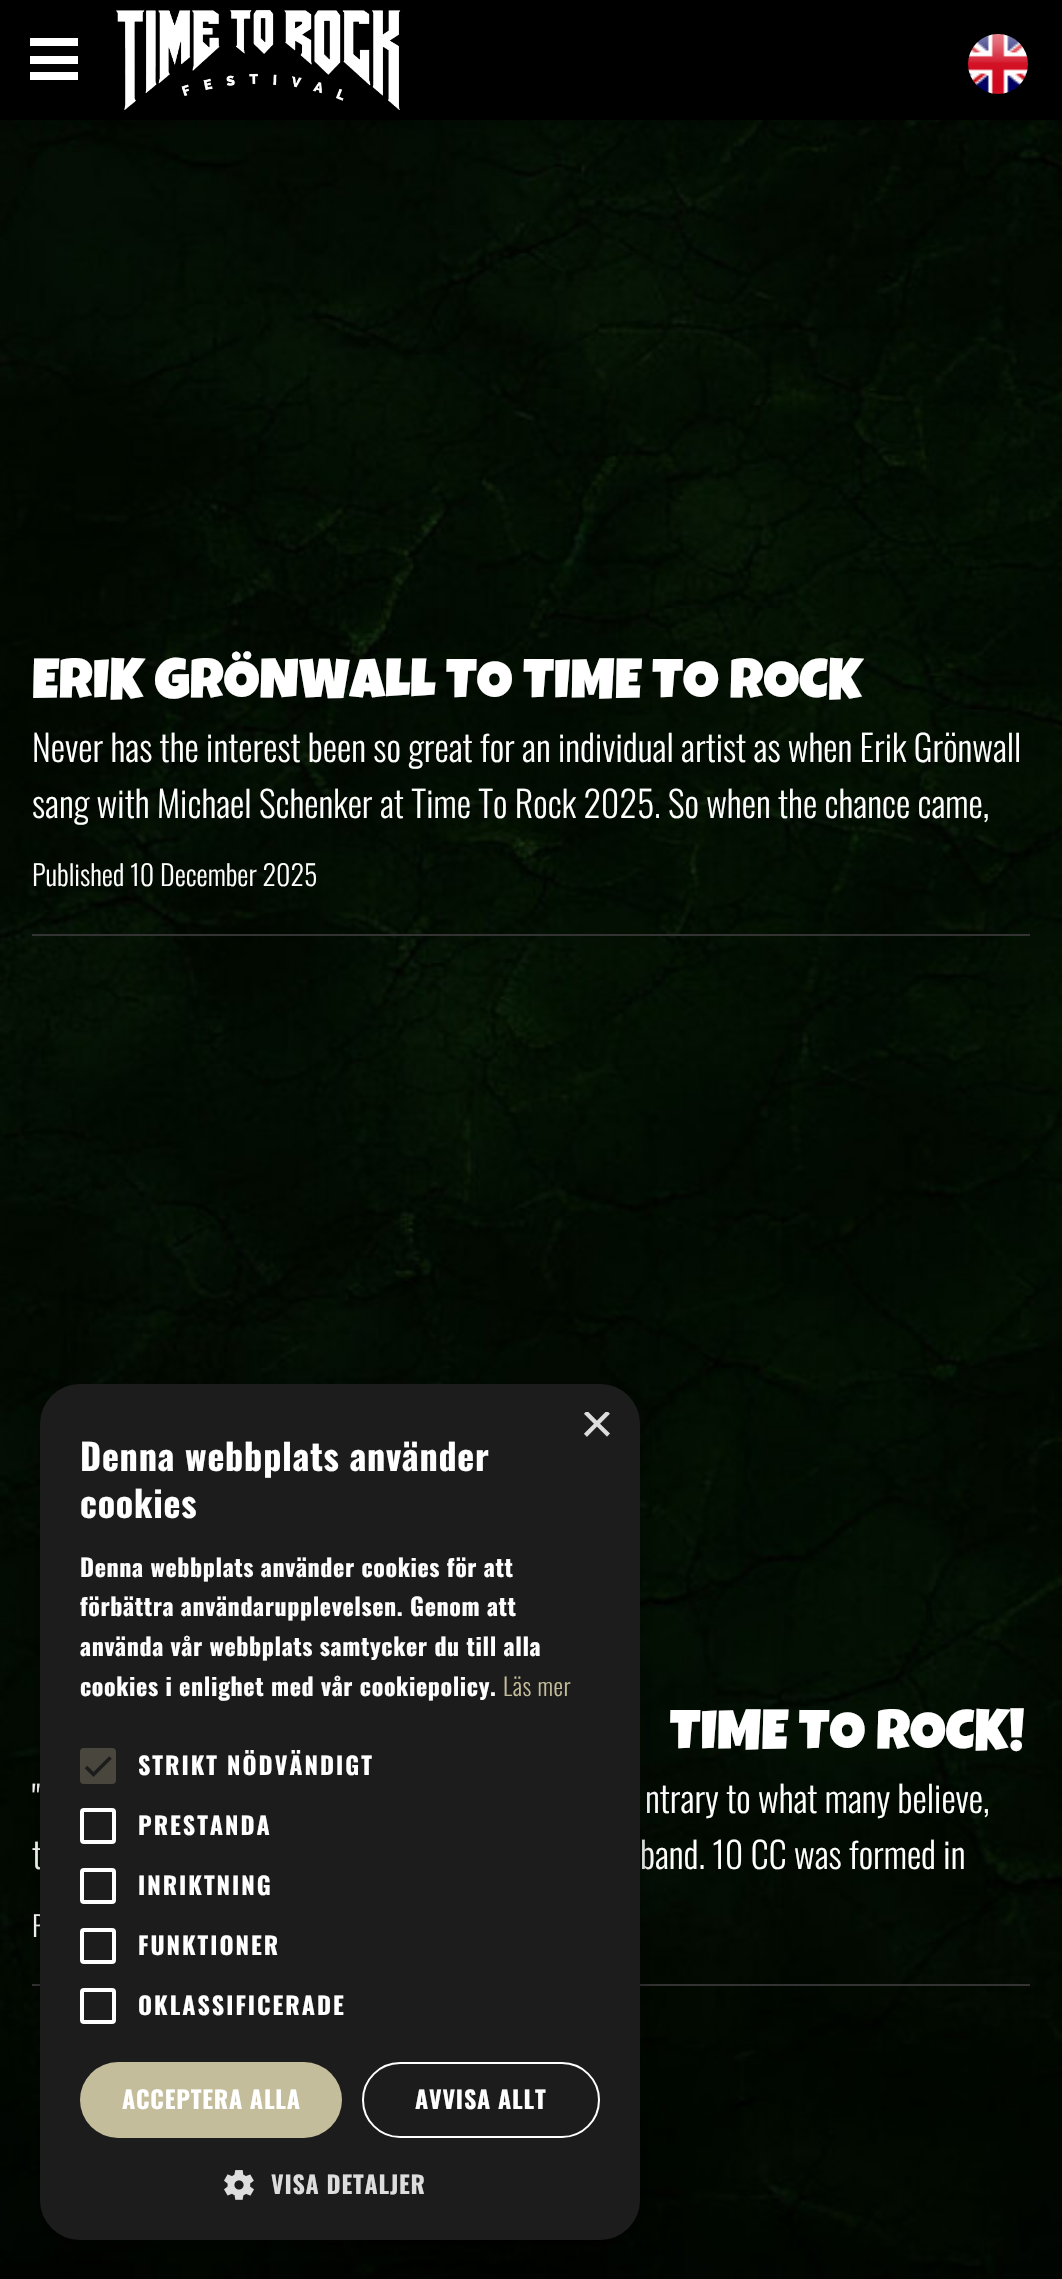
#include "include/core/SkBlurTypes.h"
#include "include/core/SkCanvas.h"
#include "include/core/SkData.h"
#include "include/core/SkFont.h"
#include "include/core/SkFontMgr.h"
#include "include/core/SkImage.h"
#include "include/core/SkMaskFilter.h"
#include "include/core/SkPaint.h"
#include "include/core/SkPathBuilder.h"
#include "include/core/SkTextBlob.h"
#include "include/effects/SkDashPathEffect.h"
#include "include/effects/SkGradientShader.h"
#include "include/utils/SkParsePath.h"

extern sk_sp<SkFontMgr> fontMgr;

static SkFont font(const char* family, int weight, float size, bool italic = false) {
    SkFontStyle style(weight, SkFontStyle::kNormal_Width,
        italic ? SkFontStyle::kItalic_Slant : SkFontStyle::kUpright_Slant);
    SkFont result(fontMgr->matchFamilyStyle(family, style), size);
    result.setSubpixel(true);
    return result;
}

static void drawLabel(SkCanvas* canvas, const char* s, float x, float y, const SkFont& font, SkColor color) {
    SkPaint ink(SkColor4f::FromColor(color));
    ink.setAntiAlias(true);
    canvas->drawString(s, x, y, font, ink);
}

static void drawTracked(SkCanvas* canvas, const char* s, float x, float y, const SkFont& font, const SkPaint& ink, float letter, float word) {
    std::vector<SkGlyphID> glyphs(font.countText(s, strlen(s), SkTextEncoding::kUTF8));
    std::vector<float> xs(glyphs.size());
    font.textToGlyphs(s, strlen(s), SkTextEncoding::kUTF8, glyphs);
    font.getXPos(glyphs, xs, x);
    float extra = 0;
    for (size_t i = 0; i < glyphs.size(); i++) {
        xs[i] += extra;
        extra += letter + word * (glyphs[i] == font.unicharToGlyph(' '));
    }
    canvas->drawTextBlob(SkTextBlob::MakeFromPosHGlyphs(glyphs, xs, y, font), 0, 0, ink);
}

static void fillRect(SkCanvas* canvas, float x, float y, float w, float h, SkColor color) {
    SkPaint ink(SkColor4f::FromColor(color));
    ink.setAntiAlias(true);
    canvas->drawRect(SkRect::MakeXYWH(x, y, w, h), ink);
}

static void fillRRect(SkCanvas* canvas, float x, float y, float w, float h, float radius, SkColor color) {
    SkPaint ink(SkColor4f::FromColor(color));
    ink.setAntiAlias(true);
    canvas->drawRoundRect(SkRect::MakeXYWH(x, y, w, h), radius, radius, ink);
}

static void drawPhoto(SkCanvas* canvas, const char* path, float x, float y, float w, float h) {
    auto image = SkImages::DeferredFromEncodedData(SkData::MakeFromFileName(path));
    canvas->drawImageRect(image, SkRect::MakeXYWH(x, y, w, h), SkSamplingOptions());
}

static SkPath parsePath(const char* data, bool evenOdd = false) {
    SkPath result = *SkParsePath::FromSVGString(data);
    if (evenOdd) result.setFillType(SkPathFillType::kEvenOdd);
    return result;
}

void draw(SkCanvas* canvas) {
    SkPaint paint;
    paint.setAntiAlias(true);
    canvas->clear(0xFFFFFFFF);
    drawPhoto(canvas, "assets/img3.png", 0, 120, 1062, 2159);
    paint.setColor(0x99000000);
    paint.setMaskFilter(SkMaskFilter::MakeBlur(kNormal_SkBlurStyle, 8));
    canvas->drawRect(SkRect::MakeXYWH(0, 16, 1062, 100), paint);
    paint.setMaskFilter(nullptr);
    fillRect(canvas, 0, 0, 1062, 120, 0xFF000000);
    drawPhoto(canvas, "assets/img1.png", 116, 10, 285, 100);
    drawPhoto(canvas, "assets/img2.png", 968, 34, 60, 60);
    fillRect(canvas, 30, 38, 48, 8, 0xFFFFFFFF);
    fillRect(canvas, 30, 56, 48, 8, 0xFFFFFFFF);
    fillRect(canvas, 30, 72, 48, 8, 0xFFFFFFFF);
    SkFont font1 = font("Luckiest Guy", 400, 56);
    drawLabel(canvas, "ERIK GRÖNWALL TO TIME TO ROCK", 32, 698, font1, 0xFFFFFFFF);
    SkFont font2 = font("Oswald", 300, 36);
    drawLabel(canvas, "Never has the interest been so great for an individual artist as when Erik Grönwall", 32, 762, font2, 0xFFFFFFFF);
    drawLabel(canvas, "sang with Michael Schenker at Time To Rock 2025. So when the chance came,", 32, 818, font2, 0xFFFFFFFF);
    SkFont font3 = font("Oswald", 300, 28);
    drawLabel(canvas, "Published 10 December 2025", 32, 886, font3, 0xFFFFFFFF);
    fillRect(canvas, 32, 934, 998, 2, 0xFF333333);
    drawLabel(canvas, "TIME TO ROCK!", 670, 1749, font1, 0xFFFFFFFF);
    drawLabel(canvas, "\"", 32, 1813, font2, 0xFFFFFFFF);
    drawLabel(canvas, "ntrary to what many believe,", 645, 1813, font2, 0xFFFFFFFF);
    drawLabel(canvas, "t", 32, 1869, font2, 0xFFFFFFFF);
    drawLabel(canvas, "band. 10 CC was formed in", 640, 1869, font2, 0xFFFFFFFF);
    drawLabel(canvas, "P", 32, 1937, font3, 0xFFFFFFFF);
    fillRect(canvas, 32, 1984, 998, 2, 0xFF333333);
    paint.setColor(0x59000000);
    paint.setMaskFilter(SkMaskFilter::MakeBlur(kNormal_SkBlurStyle, 8));
    canvas->drawRoundRect(SkRect::MakeXYWH(42, 1388, 600, 856), 40, 40, paint);
    paint.setMaskFilter(nullptr);
    fillRRect(canvas, 40, 1384, 600, 856, 40, 0xFF1C1C1C);
    canvas->save();
    canvas->clipRect(SkRect::MakeXYWH(580, 1412, 30, 30));
    SkFont font4 = font("Liberation Sans", 400, 58);
    drawLabel(canvas, "×", 580, 1443, font4, 0xFFDDDDDD);
    canvas->restore();
    SkFont font5 = font("Oswald", 700, 36);
    paint.setColor(0xFFFFFFFF);
    drawTracked(canvas, "Denna webbplats använder", 80, 1471, font5, paint, 0.8f, 0);
    drawTracked(canvas, "cookies", 80, 1518, font5, paint, 0.8f, 0);
    SkFont font6 = font("Oswald", 700, 24);
    drawTracked(canvas, "Denna webbplats använder cookies för att", 80, 1577, font6, paint, 0.6f, 0);
    drawTracked(canvas, "förbättra användarupplevelsen. Genom att", 80, 1616, font6, paint, 0.6f, 0);
    drawTracked(canvas, "använda vår webbplats samtycker du till alla", 80, 1656, font6, paint, 0.6f, 0);
    drawTracked(canvas, "cookies i enlighet med vår cookiepolicy.", 80, 1696, font6, paint, 0.6f, 0);
    SkFont font7 = font("Oswald", 300, 24);
    paint.setColor(0xFFC4BD9B);
    drawTracked(canvas, "Läs mer", 503, 1696, font7, paint, 0.6f, 0);
    fillRRect(canvas, 80, 1748, 36, 36, 4, 0xFF48463D);
    paint.setStroke(true);
    paint.setStrokeWidth(3.6f);
    paint.setColor(0xFF1C1C1C);
    canvas->drawPath(parsePath("M86 1767L93.5 1774.5L110.5 1757.5"), paint);
    paint.setStroke(false);
    paint.setColor(0xFFFFFFFF);
    drawTracked(canvas, "STRIKT NÖDVÄNDIGT", 138, 1775, font6, paint, 2, 0);
    paint.setStroke(true);
    paint.setStrokeWidth(4);
    canvas->drawRoundRect(SkRect::MakeXYWH(82, 1810, 32, 32), 2, 2, paint);
    paint.setStroke(false);
    drawTracked(canvas, "PRESTANDA", 138, 1835, font6, paint, 2, 0);
    paint.setStroke(true);
    canvas->drawRoundRect(SkRect::MakeXYWH(82, 1870, 32, 32), 2, 2, paint);
    paint.setStroke(false);
    drawTracked(canvas, "INRIKTNING", 138, 1895, font6, paint, 2, 0);
    paint.setStroke(true);
    canvas->drawRoundRect(SkRect::MakeXYWH(82, 1930, 32, 32), 2, 2, paint);
    paint.setStroke(false);
    drawTracked(canvas, "FUNKTIONER", 138, 1955, font6, paint, 2, 0);
    paint.setStroke(true);
    canvas->drawRoundRect(SkRect::MakeXYWH(82, 1990, 32, 32), 2, 2, paint);
    paint.setStroke(false);
    drawTracked(canvas, "OKLASSIFICERADE", 138, 2015, font6, paint, 2, 0);
    fillRRect(canvas, 80, 2062, 262, 76, 38, 0xFFC4BD9B);
    drawTracked(canvas, "ACCEPTERA ALLA", 122, 2109, font6, paint, 0.8f, 0);
    paint.setStroke(true);
    paint.setStrokeWidth(2);
    canvas->drawRoundRect(SkRect::MakeXYWH(363, 2063, 236, 74), 37, 37, paint);
    paint.setStroke(false);
    drawTracked(canvas, "AVVISA ALLT", 415, 2109, font6, paint, 0.8f, 0);
    drawPhoto(canvas, "assets/img4.png", 224, 2170, 30, 30);
    paint.setColor(0xFFDDDDDD);
    drawTracked(canvas, "VISA DETALJER", 271, 2194, font6, paint, 0.8f, 0);
}
